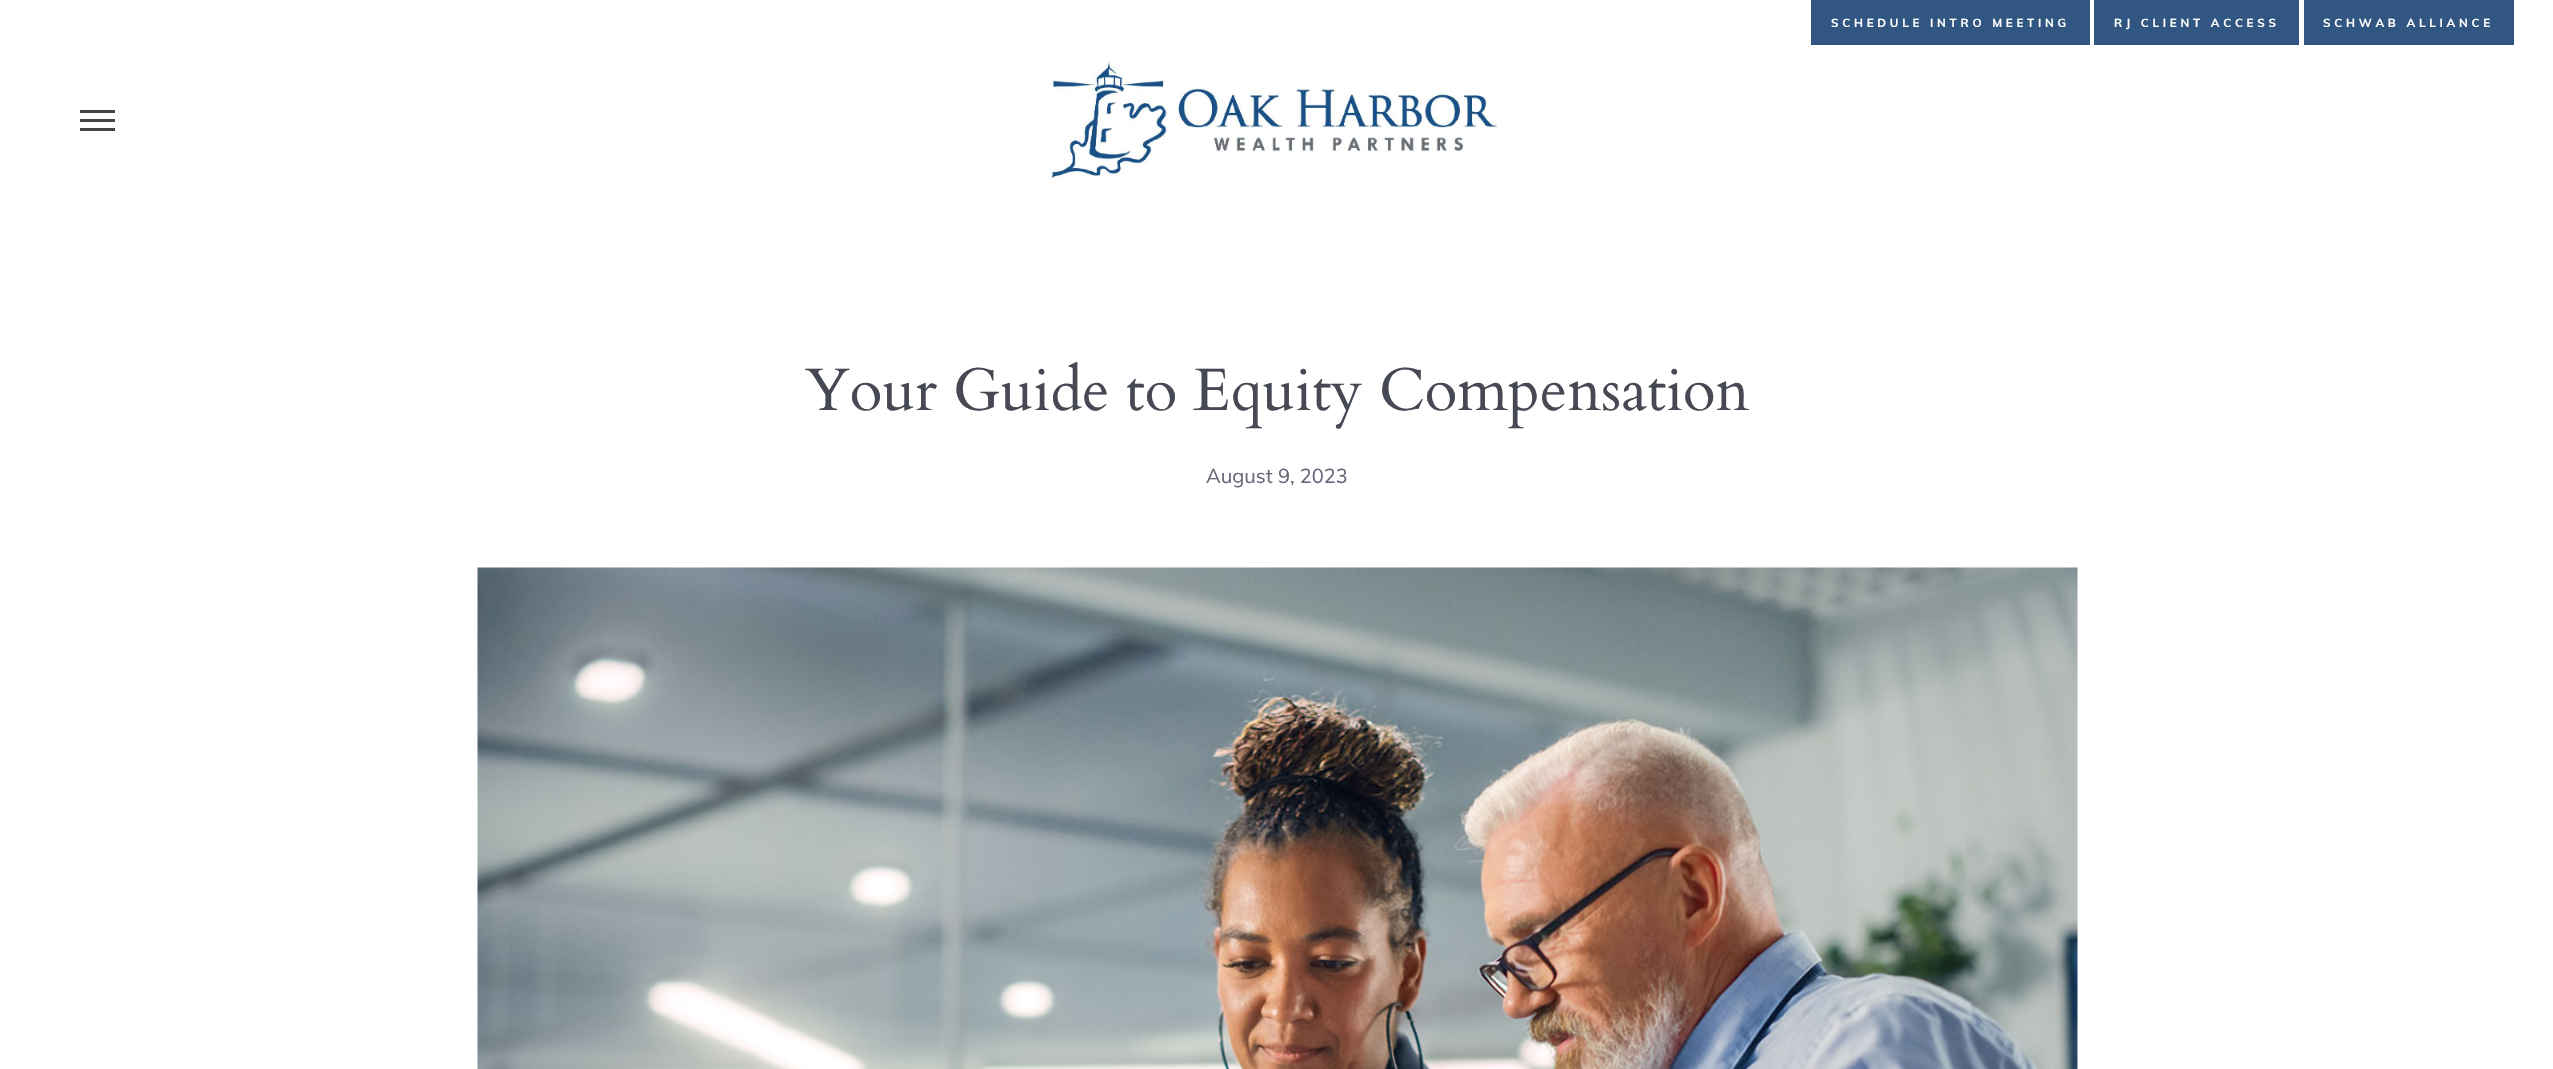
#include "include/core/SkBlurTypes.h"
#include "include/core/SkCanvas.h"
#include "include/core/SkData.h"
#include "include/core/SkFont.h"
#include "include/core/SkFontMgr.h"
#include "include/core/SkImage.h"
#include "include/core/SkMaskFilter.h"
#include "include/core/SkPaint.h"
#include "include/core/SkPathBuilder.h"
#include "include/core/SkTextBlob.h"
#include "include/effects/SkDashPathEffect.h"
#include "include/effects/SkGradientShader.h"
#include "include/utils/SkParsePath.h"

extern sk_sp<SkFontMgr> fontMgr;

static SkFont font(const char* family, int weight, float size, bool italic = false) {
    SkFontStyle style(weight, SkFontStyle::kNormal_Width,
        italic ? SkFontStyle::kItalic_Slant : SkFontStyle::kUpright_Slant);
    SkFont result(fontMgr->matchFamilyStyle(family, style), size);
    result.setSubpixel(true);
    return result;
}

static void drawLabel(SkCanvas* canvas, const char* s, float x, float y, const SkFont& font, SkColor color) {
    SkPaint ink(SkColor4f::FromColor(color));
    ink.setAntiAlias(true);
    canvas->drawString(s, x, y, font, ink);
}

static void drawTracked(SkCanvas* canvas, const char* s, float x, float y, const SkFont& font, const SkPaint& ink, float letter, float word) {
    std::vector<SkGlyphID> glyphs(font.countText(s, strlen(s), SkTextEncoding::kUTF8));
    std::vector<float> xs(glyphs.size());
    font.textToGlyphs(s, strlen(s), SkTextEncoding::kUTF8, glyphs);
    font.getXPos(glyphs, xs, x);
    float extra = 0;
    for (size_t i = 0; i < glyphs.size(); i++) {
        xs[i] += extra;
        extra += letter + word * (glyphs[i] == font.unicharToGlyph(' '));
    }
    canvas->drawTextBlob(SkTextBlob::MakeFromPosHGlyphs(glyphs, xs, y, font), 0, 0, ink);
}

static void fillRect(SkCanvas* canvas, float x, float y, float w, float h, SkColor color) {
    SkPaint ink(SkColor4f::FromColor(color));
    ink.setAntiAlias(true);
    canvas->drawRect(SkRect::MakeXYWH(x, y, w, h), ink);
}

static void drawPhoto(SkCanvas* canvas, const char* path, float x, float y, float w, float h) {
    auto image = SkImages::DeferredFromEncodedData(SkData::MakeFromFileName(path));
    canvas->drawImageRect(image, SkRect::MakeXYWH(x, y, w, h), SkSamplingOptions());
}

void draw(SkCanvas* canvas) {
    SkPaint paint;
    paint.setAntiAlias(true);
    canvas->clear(0xFFFFFFFF);
    fillRect(canvas, 1811, 0, 279, 45, 0xFF315681);
    SkFont font1 = font("Muli", 700, 11.6f);
    paint.setColor(0xFFFFFFFF);
    drawTracked(canvas, "SCHEDULE INTRO MEETING", 1831, 27, font1, paint, 3.75f, 0);
    fillRect(canvas, 2094, 0, 205, 45, 0xFF315681);
    drawTracked(canvas, "RJ CLIENT ACCESS", 2114, 27, font1, paint, 3.75f, 0);
    fillRect(canvas, 2304, 0, 210, 45, 0xFF315681);
    drawTracked(canvas, "SCHWAB ALLIANCE", 2323, 27, font1, paint, 3.75f, 0);
    fillRect(canvas, 80, 110, 35, 3, 0xFF434343);
    fillRect(canvas, 80, 119, 35, 3, 0xFF434343);
    fillRect(canvas, 80, 128, 35, 3, 0xFF434343);
    drawPhoto(canvas, "assets/img1.png", 1049, 60, 449, 120);
    SkFont font2 = font("Cardo", 400, 60);
    drawLabel(canvas, "Your Guide to Equity Compensation", 805, 410, font2, 0xFF464853);
    SkFont font3 = font("Muli", 400, 20);
    drawLabel(canvas, "August 9, 2023", 1206, 483, font3, 0xFF646777);
    drawPhoto(canvas, "assets/img2.png", 477, 567, 1601, 502);
}
